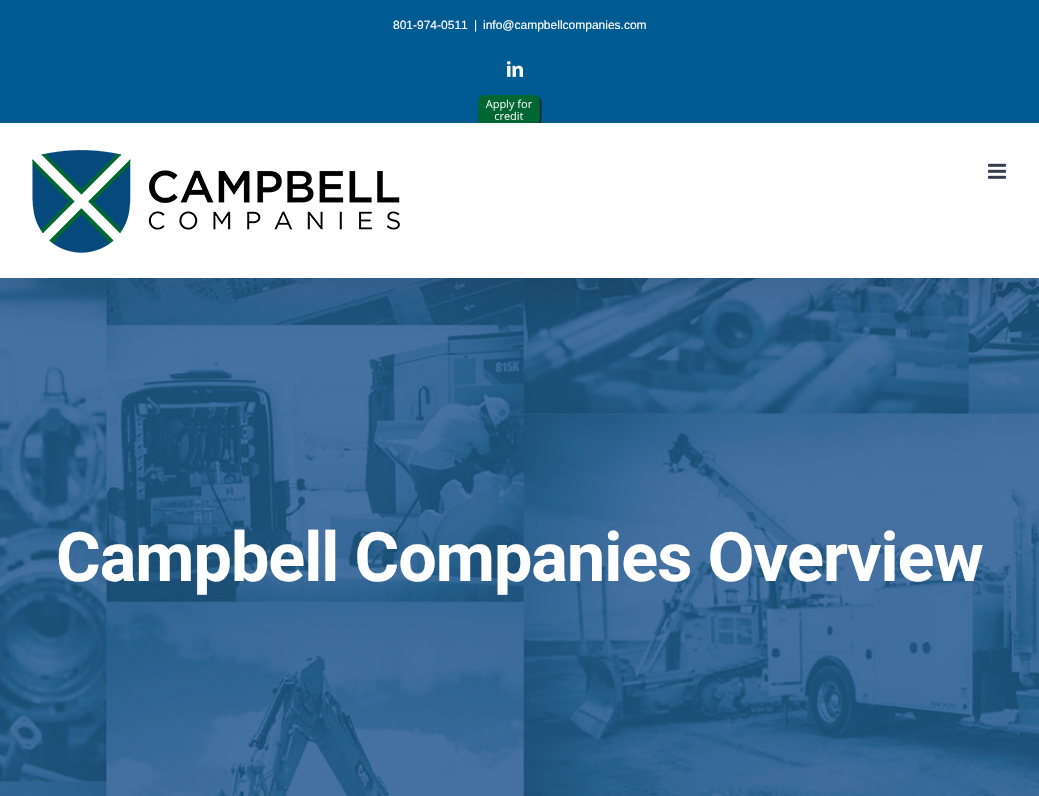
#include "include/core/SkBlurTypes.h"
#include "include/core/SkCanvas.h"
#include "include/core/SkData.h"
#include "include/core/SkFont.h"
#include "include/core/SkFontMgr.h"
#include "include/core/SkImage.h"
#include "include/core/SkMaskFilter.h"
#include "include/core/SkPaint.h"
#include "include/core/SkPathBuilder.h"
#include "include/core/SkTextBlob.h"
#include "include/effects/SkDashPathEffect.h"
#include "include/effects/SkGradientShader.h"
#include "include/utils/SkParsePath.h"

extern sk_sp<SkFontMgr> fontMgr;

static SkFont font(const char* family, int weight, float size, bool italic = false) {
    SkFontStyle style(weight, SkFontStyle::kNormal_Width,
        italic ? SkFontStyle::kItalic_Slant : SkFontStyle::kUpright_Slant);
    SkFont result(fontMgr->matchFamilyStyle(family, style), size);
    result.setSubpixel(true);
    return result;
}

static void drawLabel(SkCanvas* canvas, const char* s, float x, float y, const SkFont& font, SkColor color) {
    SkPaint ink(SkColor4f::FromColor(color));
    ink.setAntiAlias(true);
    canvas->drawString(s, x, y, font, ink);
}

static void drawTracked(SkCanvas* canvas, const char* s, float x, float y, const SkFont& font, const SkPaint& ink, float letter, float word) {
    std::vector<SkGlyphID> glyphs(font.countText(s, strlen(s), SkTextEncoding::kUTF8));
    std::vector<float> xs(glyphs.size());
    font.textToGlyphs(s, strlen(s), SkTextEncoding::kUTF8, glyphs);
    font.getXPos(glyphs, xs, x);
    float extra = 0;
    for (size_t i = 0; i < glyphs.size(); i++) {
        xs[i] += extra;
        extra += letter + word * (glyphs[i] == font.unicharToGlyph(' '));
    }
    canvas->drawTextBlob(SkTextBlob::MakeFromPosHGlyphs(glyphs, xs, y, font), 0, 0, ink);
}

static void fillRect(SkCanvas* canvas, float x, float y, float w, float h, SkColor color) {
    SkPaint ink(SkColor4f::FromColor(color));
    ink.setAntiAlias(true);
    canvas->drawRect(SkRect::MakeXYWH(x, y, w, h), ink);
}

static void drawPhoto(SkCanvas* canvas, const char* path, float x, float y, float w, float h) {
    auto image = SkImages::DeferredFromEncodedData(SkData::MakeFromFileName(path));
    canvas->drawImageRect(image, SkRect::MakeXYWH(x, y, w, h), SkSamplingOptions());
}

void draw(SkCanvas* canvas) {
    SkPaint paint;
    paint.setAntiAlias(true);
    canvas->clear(0xFFFFFFFF);
    drawPhoto(canvas, "assets/img5.png", 0, 278, 1039, 518);
    paint.setColor(0x24000000);
    paint.setMaskFilter(SkMaskFilter::MakeBlur(kNormal_SkBlurStyle, 25));
    canvas->drawRect(SkRect::MakeXYWH(2, 12, 1035, 274), paint);
    paint.setMaskFilter(nullptr);
    fillRect(canvas, 0, 0, 1039, 123, 0xFF005B92);
    SkFont font1 = font("Liberation Sans", 400, 12);
    drawLabel(canvas, "801-974-0511", 393, 29, font1, 0xFFFFFFFF);
    drawLabel(canvas, "|", 474, 29, font1, 0xFFFFFFFF);
    drawLabel(canvas, "info@campbellcompanies.com", 483, 29, font1, 0xFFFFFFFF);
    drawPhoto(canvas, "assets/img1.png", 507, 61, 16, 16);
    drawPhoto(canvas, "assets/img2.png", 478, 95, 64, 28);
    fillRect(canvas, 0, 123, 1039, 155, 0xFFFFFFFF);
    drawPhoto(canvas, "assets/img3.png", 32, 150, 368, 103);
    drawPhoto(canvas, "assets/img4.png", 988, 163, 18, 16);
    SkFont font2 = font("Roboto", 700, 68.3f);
    paint.setColor(0xFFFFFFFF);
    drawTracked(canvas, "Campbell Companies Overview", 56, 581, font2, paint, -1, 0);
}
